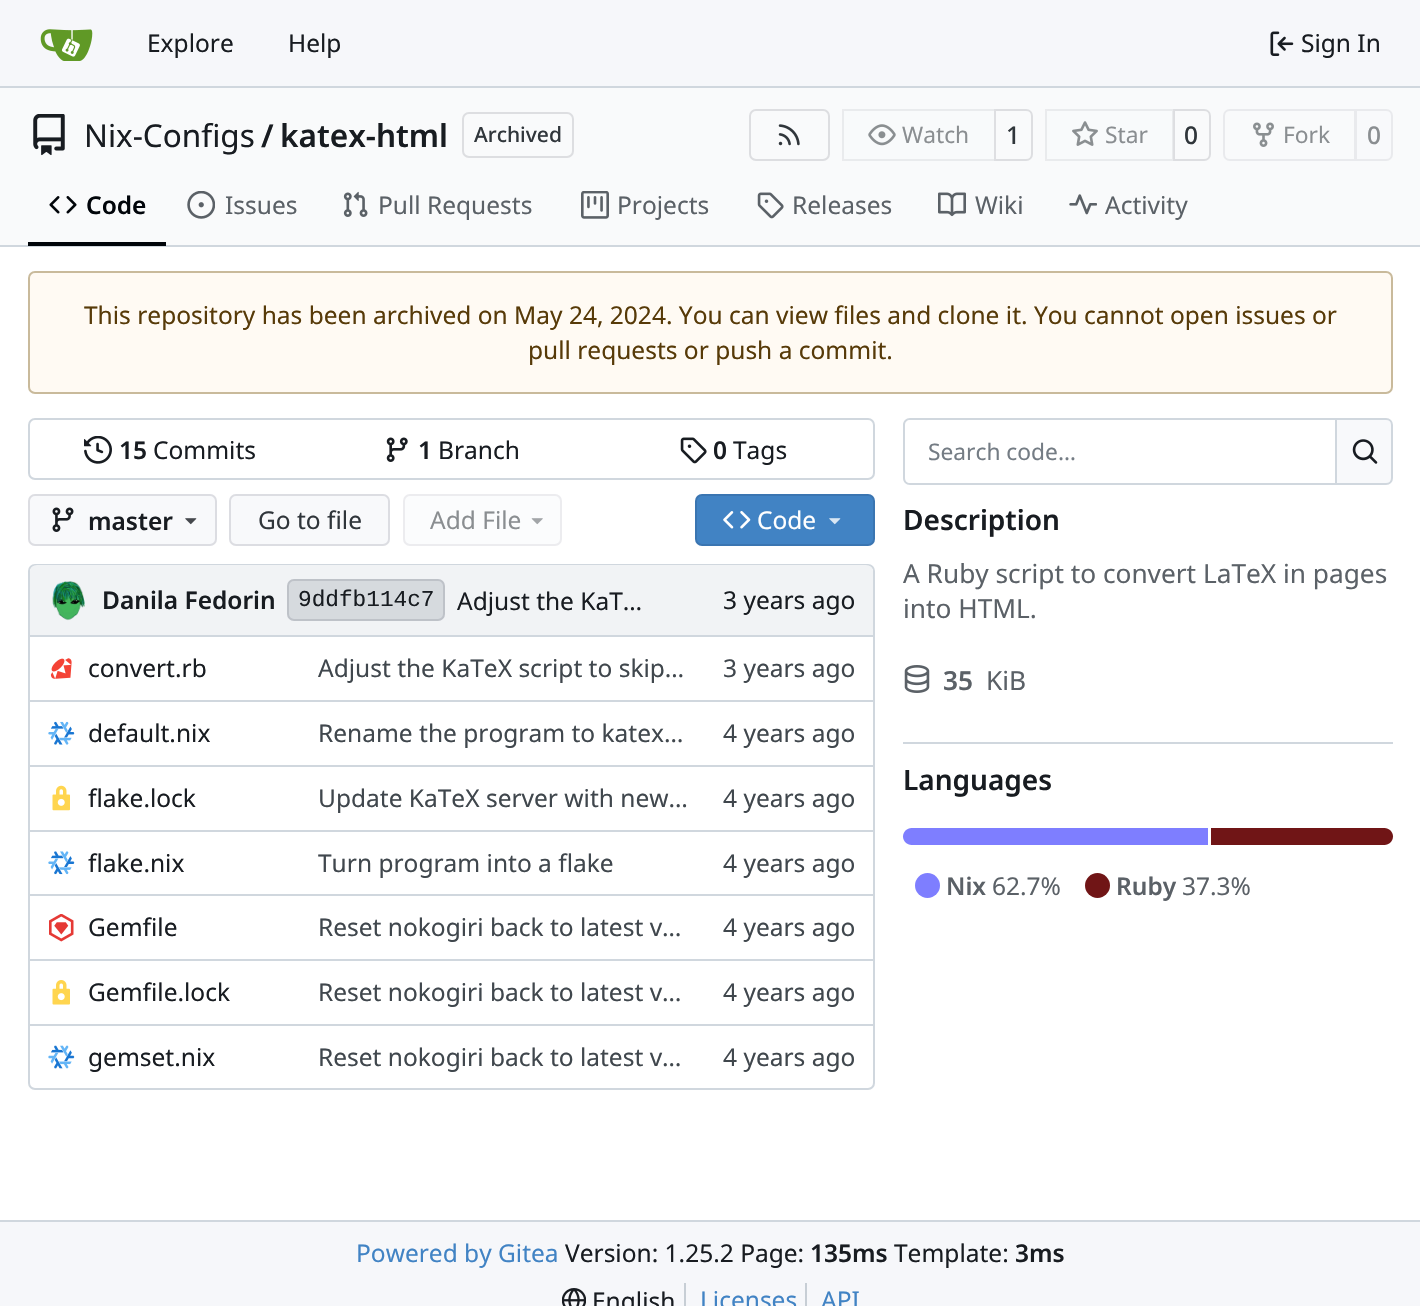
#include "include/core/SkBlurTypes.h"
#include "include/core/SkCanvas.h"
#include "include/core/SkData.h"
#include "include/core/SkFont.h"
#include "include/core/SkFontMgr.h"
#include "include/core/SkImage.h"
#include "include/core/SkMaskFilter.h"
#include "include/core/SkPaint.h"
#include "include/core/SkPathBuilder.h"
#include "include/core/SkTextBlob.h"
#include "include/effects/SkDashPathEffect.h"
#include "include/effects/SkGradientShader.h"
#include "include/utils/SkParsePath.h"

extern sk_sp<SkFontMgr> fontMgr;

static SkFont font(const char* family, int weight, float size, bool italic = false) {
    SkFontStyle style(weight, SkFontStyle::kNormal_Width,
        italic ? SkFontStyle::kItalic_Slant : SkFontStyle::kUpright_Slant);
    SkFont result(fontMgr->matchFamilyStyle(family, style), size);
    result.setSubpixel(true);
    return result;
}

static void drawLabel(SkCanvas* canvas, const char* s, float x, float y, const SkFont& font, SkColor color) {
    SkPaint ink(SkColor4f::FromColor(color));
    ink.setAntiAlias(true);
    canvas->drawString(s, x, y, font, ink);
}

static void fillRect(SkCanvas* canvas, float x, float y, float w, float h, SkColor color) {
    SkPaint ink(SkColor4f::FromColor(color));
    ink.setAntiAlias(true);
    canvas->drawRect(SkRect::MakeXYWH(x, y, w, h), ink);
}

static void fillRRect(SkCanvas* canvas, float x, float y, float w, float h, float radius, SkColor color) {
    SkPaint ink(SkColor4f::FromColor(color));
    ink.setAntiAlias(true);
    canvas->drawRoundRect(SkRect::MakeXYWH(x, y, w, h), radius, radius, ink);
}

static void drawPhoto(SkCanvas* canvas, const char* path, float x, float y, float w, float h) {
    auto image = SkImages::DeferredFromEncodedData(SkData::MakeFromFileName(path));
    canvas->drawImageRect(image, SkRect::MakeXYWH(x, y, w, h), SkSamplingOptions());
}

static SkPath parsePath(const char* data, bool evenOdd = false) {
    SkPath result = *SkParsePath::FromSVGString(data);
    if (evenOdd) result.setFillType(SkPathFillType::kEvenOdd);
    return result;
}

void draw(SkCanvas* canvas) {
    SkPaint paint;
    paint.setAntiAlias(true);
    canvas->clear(0xFFFFFFFF);
    fillRect(canvas, 0, 0, 1420, 86, 0xFFF6F7FA);
    fillRect(canvas, 0, 86, 1420, 2, 0xFFD0D7DE);
    drawPhoto(canvas, "assets/img1.png", 40, 29, 53, 32);
    SkFont font1 = font("Noto Sans", 400, 24.5f);
    drawLabel(canvas, "Explore", 147, 52, font1, 0xFF181C21);
    drawLabel(canvas, "Help", 288, 52, font1, 0xFF181C21);
    drawPhoto(canvas, "assets/img2.png", 1270, 31, 24, 25);
    drawLabel(canvas, "Sign In", 1301, 52, font1, 0xFF181C21);
    fillRect(canvas, 0, 88, 1420, 157, 0xFFF9FAFB);
    drawPhoto(canvas, "assets/img3.png", 33, 114, 32, 42);
    SkFont font2 = font("Noto Sans", 400, 31.5f);
    drawLabel(canvas, "Nix-Configs", 84, 147, font2, 0xFF181C21);
    SkFont font3 = font("Noto Sans", 600, 31.5f);
    drawLabel(canvas, "/", 261, 147, font3, 0xFF181C21);
    drawLabel(canvas, "katex-html", 280, 147, font3, 0xFF181C21);
    paint.setStroke(true);
    paint.setStrokeWidth(2);
    paint.setColor(0xFFDDDEE1);
    canvas->drawRoundRect(SkRect::MakeXYWH(463, 113, 110, 44), 6, 6, paint);
    SkFont font4 = font("Noto Sans", 500, 21);
    drawLabel(canvas, "Archived", 474, 142, font4, 0xFF30363B);
    canvas->drawRoundRect(SkRect::MakeXYWH(750, 110, 79, 50), 6, 6, paint);
    drawPhoto(canvas, "assets/img4.png", 778, 124, 22, 22);
    canvas->drawPath(parsePath("M995 110H1026C1029.5 110 1032 112.5 1032 116V154C1032 157.5 1029.5 160 1026 160H995Z"), paint);
    paint.setStroke(false);
    paint.setColor(0x8CF8F9FB);
    canvas->drawPath(parsePath("M849 109H996V161H849C845 161 842 158 842 154V116C842 112 845 109 849 109Z"), paint);
    paint.setStroke(true);
    paint.setColor(0x0F000017);
    canvas->drawRect(SkRect::MakeXYWH(843, 110, 152, 50), paint);
    drawPhoto(canvas, "assets/img5.png", 868, 124, 28, 22);
    SkFont font5 = font("Noto Sans", 400, 22.75f);
    drawLabel(canvas, "Watch", 902, 143, font5, 0xFF8A8E91);
    SkFont font6 = font("Noto Sans", 500, 24.5f);
    drawLabel(canvas, "1", 1006, 144, font6, 0xFF30363B);
    paint.setColor(0xFFDDDEE1);
    canvas->drawPath(parsePath("M1174 110H1204C1207.5 110 1210 112.5 1210 116V154C1210 157.5 1207.5 160 1204 160H1174Z"), paint);
    paint.setStroke(false);
    paint.setColor(0x8CF8F9FB);
    canvas->drawPath(parsePath("M1052 109H1174V161H1052C1048 161 1045 158 1045 154V116C1045 112 1048 109 1052 109Z"), paint);
    paint.setStroke(true);
    paint.setColor(0x0F000017);
    canvas->drawRect(SkRect::MakeXYWH(1046, 110, 127, 50), paint);
    drawPhoto(canvas, "assets/img6.png", 1072, 121, 26, 25);
    drawLabel(canvas, "Star", 1105, 143, font5, 0xFF8A8E91);
    drawLabel(canvas, "0", 1184, 144, font6, 0xFF30363B);
    paint.setColor(0xFFE9EAED);
    canvas->drawPath(parsePath("M1230 110H1355V160H1230C1226.5 160 1224 157.5 1224 154V116C1224 112.5 1226.5 110 1230 110Z"), paint);
    drawPhoto(canvas, "assets/img7.png", 1253, 122, 21, 25);
    drawLabel(canvas, "Fork", 1283, 143, font5, 0xFF8A8E91);
    paint.setStroke(false);
    paint.setColor(0xFFF8F9FB);
    canvas->drawPath(parsePath("M1356 110H1386C1389.5 110 1392 112.5 1392 116V154C1392 157.5 1389.5 160 1386 160H1356Z"), paint);
    paint.setStroke(true);
    paint.setColor(0xFFE9EAED);
    canvas->drawPath(parsePath("M1356 110H1386C1389.5 110 1392 112.5 1392 116V154C1392 157.5 1389.5 160 1386 160H1356Z"), paint);
    drawLabel(canvas, "0", 1367, 144, font6, 0xFF8A8E91);
    fillRect(canvas, 0, 245, 1420, 2, 0xFFD0D7DE);
    fillRect(canvas, 28, 242, 138, 4, 0xFF01050A);
    drawPhoto(canvas, "assets/img8.png", 49, 196, 28, 18);
    SkFont font7 = font("Noto Sans", 600, 24.5f);
    drawLabel(canvas, "Code", 86, 214, font7, 0xFF01050A);
    drawPhoto(canvas, "assets/img9.png", 187, 191, 28, 28);
    drawLabel(canvas, "Issues", 225, 214, font1, 0xFF5B6167);
    drawPhoto(canvas, "assets/img10.png", 343, 191, 25, 26);
    drawLabel(canvas, "Pull Requests", 378, 214, font1, 0xFF5B6167);
    drawPhoto(canvas, "assets/img11.png", 581, 191, 28, 28);
    drawLabel(canvas, "Projects", 617, 214, font1, 0xFF5B6167);
    drawPhoto(canvas, "assets/img12.png", 757, 192, 27, 27);
    drawLabel(canvas, "Releases", 792, 214, font1, 0xFF5B6167);
    drawPhoto(canvas, "assets/img13.png", 938, 192, 28, 25);
    drawLabel(canvas, "Wiki", 975, 214, font1, 0xFF5B6167);
    drawPhoto(canvas, "assets/img14.png", 1069, 194, 28, 21);
    drawLabel(canvas, "Activity", 1105, 214, font1, 0xFF5B6167);
    paint.setStroke(false);
    paint.setColor(0xFFFFFAF3);
    canvas->drawRoundRect(SkRect::MakeXYWH(29, 272, 1363, 121), 6, 6, paint);
    paint.setStroke(true);
    paint.setColor(0xFFC9BA9B);
    canvas->drawRoundRect(SkRect::MakeXYWH(29, 272, 1363, 121), 6, 6, paint);
    drawLabel(canvas, "This repository has been archived on May 24, 2024. You can view files and clone it. You cannot open issues or", 84, 324, font1, 0xFF573A08);
    drawLabel(canvas, "pull requests or push a commit.", 528, 359, font1, 0xFF573A08);
    paint.setColor(0xFFD0D7DE);
    canvas->drawRoundRect(SkRect::MakeXYWH(29, 419, 845, 60), 6, 6, paint);
    drawPhoto(canvas, "assets/img15.png", 84, 436, 28, 28);
    drawLabel(canvas, "15", 119, 459, font7, 0xFF181C21);
    drawLabel(canvas, "Commits", 153, 459, font1, 0xFF181C21);
    drawPhoto(canvas, "assets/img16.png", 386, 437, 22, 25);
    drawLabel(canvas, "1", 418, 459, font7, 0xFF181C21);
    drawLabel(canvas, "Branch", 438, 459, font1, 0xFF181C21);
    drawPhoto(canvas, "assets/img17.png", 680, 437, 27, 27);
    drawLabel(canvas, "0", 713, 459, font7, 0xFF181C21);
    drawLabel(canvas, "Tags", 733, 459, font1, 0xFF181C21);
    fillRRect(canvas, 28, 494, 189, 52, 7, 0xFFF8F9FB);
    paint.setColor(0x1C000017);
    canvas->drawRoundRect(SkRect::MakeXYWH(29, 495, 187, 50), 6, 6, paint);
    drawPhoto(canvas, "assets/img18.png", 52, 507, 22, 25);
    drawLabel(canvas, "master", 88, 530, font7, 0xFF181C21);
    drawPhoto(canvas, "assets/img19.png", 185, 518, 12, 7);
    fillRRect(canvas, 229, 494, 161, 52, 7, 0xFFF8F9FB);
    canvas->drawRoundRect(SkRect::MakeXYWH(230, 495, 159, 50), 6, 6, paint);
    drawLabel(canvas, "Go to file", 258, 529, font1, 0xFF30363B);
    paint.setStroke(false);
    paint.setColor(0xFFFBFCFD);
    canvas->drawRoundRect(SkRect::MakeXYWH(404, 495, 157, 50), 6, 6, paint);
    paint.setStroke(true);
    paint.setColor(0xFFECECEF);
    canvas->drawRoundRect(SkRect::MakeXYWH(404, 495, 157, 50), 6, 6, paint);
    drawLabel(canvas, "Add File", 430, 529, font1, 0xFF8A8E91);
    drawPhoto(canvas, "assets/img20.png", 531, 518, 12, 7);
    fillRRect(canvas, 695, 494, 180, 52, 7, 0xFF4183C4);
    paint.setColor(0x1C000017);
    canvas->drawRoundRect(SkRect::MakeXYWH(696, 495, 178, 50), 6, 6, paint);
    drawPhoto(canvas, "assets/img21.png", 723, 511, 28, 18);
    drawLabel(canvas, "Code", 757, 529, font1, 0xFFFFFFFF);
    drawPhoto(canvas, "assets/img22.png", 829, 518, 12, 7);
    paint.setColor(0xFFD0D7DE);
    canvas->drawRoundRect(SkRect::MakeXYWH(29, 565, 845, 524), 6, 6, paint);
    paint.setStroke(false);
    paint.setColor(0xFFF1F3F5);
    canvas->drawPath(parsePath("M37 565H866C870 565 873 568 873 572V635H30V572C30 568 33 565 37 565Z"), paint);
    drawPhoto(canvas, "assets/img23.png", 52, 581, 33, 40);
    drawLabel(canvas, "Danila Fedorin", 102, 609, font7, 0xFF181C21);
    fillRRect(canvas, 287, 579, 158, 42, 7, 0xFFD6DADE);
    paint.setStroke(true);
    paint.setColor(0x1C000017);
    canvas->drawRoundRect(SkRect::MakeXYWH(288, 580, 156, 40), 6, 6, paint);
    SkFont font8 = font("Liberation Mono", 400, 22.75f);
    drawLabel(canvas, "9ddfb114c7", 298, 606, font8, 0xFF181C21);
    drawLabel(canvas, "Adjust the KaT…", 457, 610, font1, 0xFF181C21);
    drawLabel(canvas, "3 years ago", 723, 609, font1, 0xFF181C21);
    fillRect(canvas, 30, 635, 675, 2, 0xFFD0D7DE);
    drawPhoto(canvas, "assets/img24.png", 50, 658, 22, 21);
    drawLabel(canvas, "convert.rb", 88, 677, font1, 0xFF181C21);
    drawLabel(canvas, "Adjust the KaTeX script to skip…", 318, 677, font1, 0xFF40474D);
    fillRect(canvas, 705, 635, 168, 2, 0xFFD0D7DE);
    drawLabel(canvas, "3 years ago", 723, 677, font1, 0xFF40474D);
    fillRect(canvas, 30, 700, 675, 2, 0xFFD0D7DE);
    drawPhoto(canvas, "assets/img25.png", 48, 721, 27, 24);
    drawLabel(canvas, "default.nix", 88, 742, font1, 0xFF181C21);
    drawLabel(canvas, "Rename the program to katex…", 318, 742, font1, 0xFF40474D);
    fillRect(canvas, 705, 700, 168, 2, 0xFFD0D7DE);
    drawLabel(canvas, "4 years ago", 723, 742, font1, 0xFF40474D);
    fillRect(canvas, 30, 765, 675, 2, 0xFFD0D7DE);
    drawPhoto(canvas, "assets/img26.png", 52, 785, 18, 26);
    drawLabel(canvas, "flake.lock", 88, 807, font1, 0xFF181C21);
    drawLabel(canvas, "Update KaTeX server with new…", 318, 807, font1, 0xFF40474D);
    fillRect(canvas, 705, 765, 168, 2, 0xFFD0D7DE);
    drawLabel(canvas, "4 years ago", 723, 807, font1, 0xFF40474D);
    fillRect(canvas, 30, 830, 675, 2, 0xFFD0D7DE);
    drawPhoto(canvas, "assets/img27.png", 48, 851, 27, 24);
    drawLabel(canvas, "flake.nix", 88, 872, font1, 0xFF181C21);
    drawLabel(canvas, "Turn program into a flake", 318, 872, font1, 0xFF40474D);
    fillRect(canvas, 705, 830, 168, 2, 0xFFD0D7DE);
    drawLabel(canvas, "4 years ago", 723, 872, font1, 0xFF40474D);
    fillRect(canvas, 30, 894, 675, 2, 0xFFD0D7DE);
    drawPhoto(canvas, "assets/img28.png", 49, 914, 25, 28);
    drawLabel(canvas, "Gemfile", 88, 936, font1, 0xFF181C21);
    drawLabel(canvas, "Reset nokogiri back to latest v…", 318, 936, font1, 0xFF40474D);
    fillRect(canvas, 705, 894, 168, 2, 0xFFD0D7DE);
    drawLabel(canvas, "4 years ago", 723, 936, font1, 0xFF40474D);
    fillRect(canvas, 30, 959, 675, 2, 0xFFD0D7DE);
    drawPhoto(canvas, "assets/img29.png", 52, 980, 18, 25);
    drawLabel(canvas, "Gemfile.lock", 88, 1001, font1, 0xFF181C21);
    drawLabel(canvas, "Reset nokogiri back to latest v…", 318, 1001, font1, 0xFF40474D);
    fillRect(canvas, 705, 959, 168, 2, 0xFFD0D7DE);
    drawLabel(canvas, "4 years ago", 723, 1001, font1, 0xFF40474D);
    fillRect(canvas, 30, 1024, 675, 2, 0xFFD0D7DE);
    drawPhoto(canvas, "assets/img30.png", 48, 1045, 27, 24);
    drawLabel(canvas, "gemset.nix", 88, 1066, font1, 0xFF181C21);
    drawLabel(canvas, "Reset nokogiri back to latest v…", 318, 1066, font1, 0xFF40474D);
    fillRect(canvas, 705, 1024, 168, 2, 0xFFD0D7DE);
    drawLabel(canvas, "4 years ago", 723, 1066, font1, 0xFF40474D);
    paint.setStroke(false);
    paint.setColor(0xFFD0D7DE);
    canvas->drawPath(parsePath("M910 418H1335V485H910C906 485 903 482 903 478V425C903 421 906 418 910 418ZM910 420H1335V483H910C907 483 905 481 905 478V425C905 422 907 420 910 420Z", true), paint);
    drawLabel(canvas, "Search code…", 928, 460, font5, 0xFF747C84);
    paint.setColor(0xFFF8F9FB);
    canvas->drawPath(parsePath("M1336 419H1386C1389.5 419 1392 421.5 1392 425V478C1392 481.5 1389.5 484 1386 484H1336Z"), paint);
    paint.setStroke(true);
    paint.setColor(0xFFD0D7DE);
    canvas->drawPath(parsePath("M1336 419H1386C1389.5 419 1392 421.5 1392 425V478C1392 481.5 1389.5 484 1386 484H1336Z"), paint);
    drawPhoto(canvas, "assets/img31.png", 1352, 439, 26, 25);
    SkFont font9 = font("Noto Sans", 600, 28);
    drawLabel(canvas, "Description", 903, 530, font9, 0xFF181C21);
    SkFont font10 = font("Noto Sans", 400, 26.25f);
    drawLabel(canvas, "A Ruby script to convert LaTeX in pages", 903, 583, font10, 0xFF5B6167);
    drawLabel(canvas, "into HTML.", 903, 618, font10, 0xFF5B6167);
    drawPhoto(canvas, "assets/img32.png", 904, 665, 26, 28);
    SkFont font11 = font("Noto Sans", 600, 26.25f);
    drawLabel(canvas, "35", 943, 690, font11, 0xFF5B6167);
    drawLabel(canvas, "KiB", 986, 690, font10, 0xFF5B6167);
    fillRect(canvas, 903, 742, 490, 2, 0xFFD0D7DE);
    drawLabel(canvas, "Languages", 903, 790, font9, 0xFF181C21);
    paint.setStroke(false);
    paint.setColor(0xFF7E7EFF);
    canvas->drawPath(parsePath("M911.5 828H1208V845H911.5C907 845 903 841 903 836.5C903 832 907 828 911.5 828Z"), paint);
    paint.setColor(0xFF701516);
    canvas->drawPath(parsePath("M1211 828H1384.5C1389 828 1393 832 1393 836.5C1393 841 1389 845 1384.5 845H1211Z"), paint);
    paint.setColor(0xFF7E7EFF);
    canvas->drawCircle(927.5f, 885.5f, 12.5f, paint);
    drawLabel(canvas, "Nix", 946, 895, font7, 0xFF5B6167);
    drawLabel(canvas, "62.7%", 992, 895, font1, 0xFF5B6167);
    paint.setColor(0xFF701516);
    canvas->drawCircle(1097.5f, 885.5f, 12.5f, paint);
    drawLabel(canvas, "Ruby", 1116, 895, font7, 0xFF5B6167);
    drawLabel(canvas, "37.3%", 1182, 895, font1, 0xFF5B6167);
    fillRect(canvas, 0, 1222, 1420, 84, 0xFFF6F7FA);
    fillRect(canvas, 0, 1220, 1420, 2, 0xFFD0D7DE);
    drawLabel(canvas, "Powered by Gitea", 356, 1262, font1, 0xFF4183C4);
    drawLabel(canvas, "Version: 1.25.2 Page:", 565, 1262, font1, 0xFF181C21);
    drawLabel(canvas, "135ms", 810, 1262, font7, 0xFF181C21);
    drawLabel(canvas, "Template:", 894, 1262, font1, 0xFF181C21);
    drawLabel(canvas, "3ms", 1015, 1262, font7, 0xFF181C21);
    drawPhoto(canvas, "assets/img33.png", 562, 1288, 24, 18);
    drawLabel(canvas, "English", 592, 1310, font1, 0xFF181C21);
    fillRect(canvas, 684, 1283, 2, 23, 0xFFC7CED5);
    drawLabel(canvas, "Licenses", 700, 1309, font1, 0xFF4183C4);
    fillRect(canvas, 805, 1283, 2, 23, 0xFFC7CED5);
    drawLabel(canvas, "API", 821, 1309, font1, 0xFF4183C4);
}
